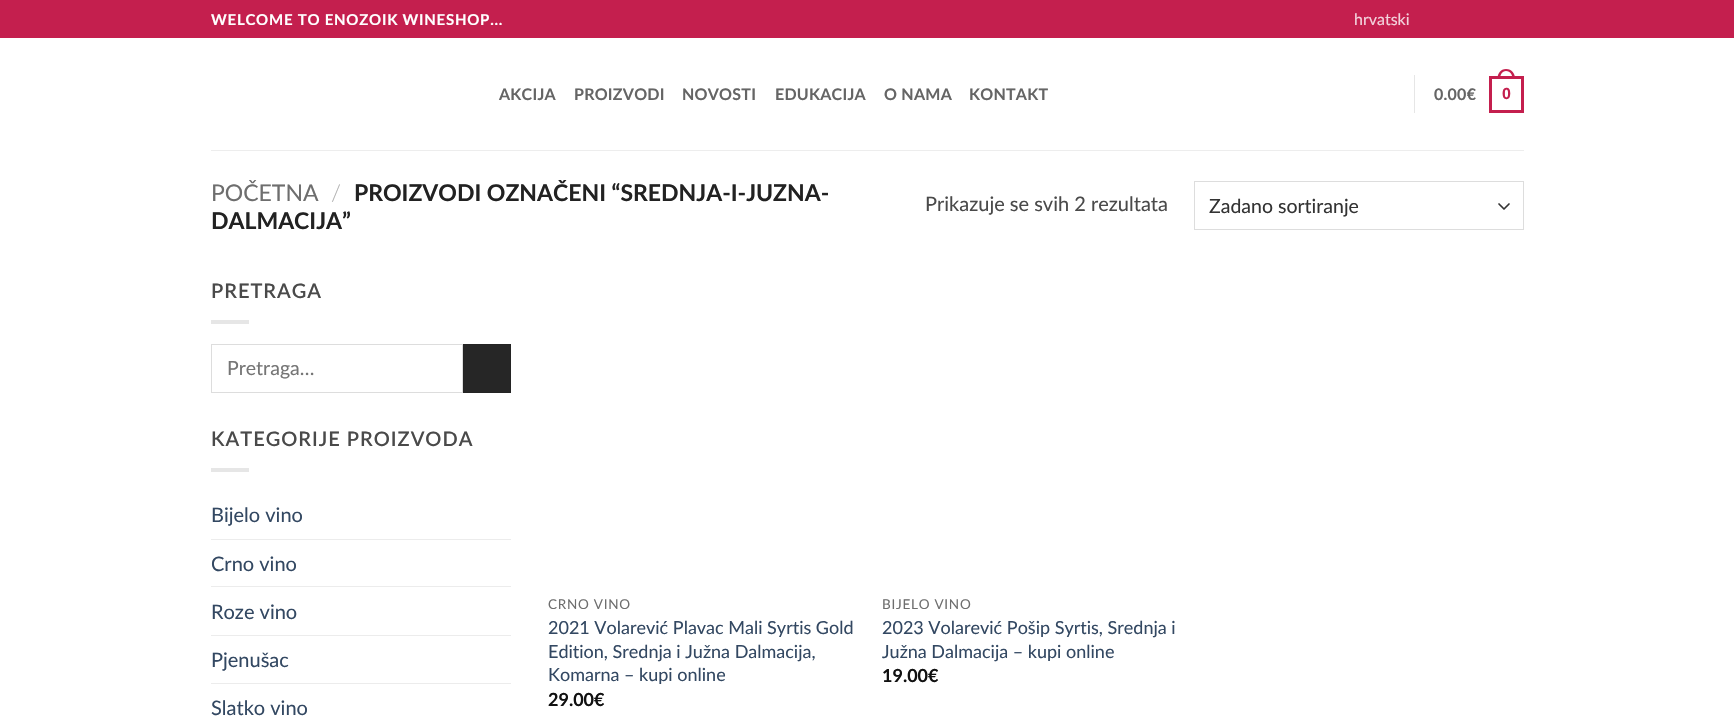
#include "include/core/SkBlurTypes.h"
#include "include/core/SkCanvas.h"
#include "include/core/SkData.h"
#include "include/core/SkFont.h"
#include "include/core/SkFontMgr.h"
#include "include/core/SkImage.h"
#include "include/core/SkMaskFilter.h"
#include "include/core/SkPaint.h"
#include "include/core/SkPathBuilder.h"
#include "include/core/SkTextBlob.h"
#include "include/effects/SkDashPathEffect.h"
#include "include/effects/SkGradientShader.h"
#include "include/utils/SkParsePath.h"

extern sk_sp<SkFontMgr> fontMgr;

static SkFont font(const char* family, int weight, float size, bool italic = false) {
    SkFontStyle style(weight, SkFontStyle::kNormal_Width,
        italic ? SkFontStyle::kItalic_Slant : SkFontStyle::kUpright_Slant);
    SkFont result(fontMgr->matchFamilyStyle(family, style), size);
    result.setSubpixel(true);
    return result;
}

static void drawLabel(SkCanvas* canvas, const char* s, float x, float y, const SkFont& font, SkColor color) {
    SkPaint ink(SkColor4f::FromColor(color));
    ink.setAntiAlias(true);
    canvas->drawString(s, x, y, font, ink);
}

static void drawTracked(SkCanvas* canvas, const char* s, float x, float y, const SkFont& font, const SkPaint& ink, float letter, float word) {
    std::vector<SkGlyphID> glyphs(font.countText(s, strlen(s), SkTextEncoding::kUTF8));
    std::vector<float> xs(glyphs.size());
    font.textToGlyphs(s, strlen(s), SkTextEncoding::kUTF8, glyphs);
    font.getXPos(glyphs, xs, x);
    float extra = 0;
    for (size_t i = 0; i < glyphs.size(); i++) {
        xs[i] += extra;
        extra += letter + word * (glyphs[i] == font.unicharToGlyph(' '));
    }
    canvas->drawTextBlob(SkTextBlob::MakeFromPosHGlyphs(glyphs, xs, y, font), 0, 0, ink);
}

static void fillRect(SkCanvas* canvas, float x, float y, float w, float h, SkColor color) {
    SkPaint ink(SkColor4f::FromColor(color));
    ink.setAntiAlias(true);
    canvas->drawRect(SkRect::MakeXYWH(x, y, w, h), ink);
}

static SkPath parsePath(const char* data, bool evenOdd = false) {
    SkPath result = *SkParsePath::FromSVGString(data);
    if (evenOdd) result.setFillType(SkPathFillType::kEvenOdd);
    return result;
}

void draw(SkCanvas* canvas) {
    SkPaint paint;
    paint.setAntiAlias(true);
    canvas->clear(0xFFFFFFFF);
    fillRect(canvas, 0, 0, 1734, 38, 0xFFC41F4E);
    SkFont font1 = font("Lato", 700, 15);
    paint.setColor(0xFFFFFFFF);
    drawTracked(canvas, "WELCOME TO ENOZOIK WINESHOP...", 211, 25, font1, paint, 0.75f, 0);
    SkFont font2 = font("Lato", 400, 16);
    drawLabel(canvas, "hrvatski", 1354, 25, font2, 0xFFF3D2DC);
    SkFont font3 = font("Lato", 700, 16);
    paint.setColor(0xFF656565);
    drawTracked(canvas, "AKCIJA", 499, 100, font3, paint, 0.25f, 0);
    drawTracked(canvas, "PROIZVODI", 574, 100, font3, paint, 0.25f, 0);
    drawTracked(canvas, "NOVOSTI", 682, 100, font3, paint, 0.25f, 0);
    drawTracked(canvas, "EDUKACIJA", 775, 100, font3, paint, 0.25f, 0);
    drawTracked(canvas, "O NAMA", 884, 100, font3, paint, 0.25f, 0);
    drawTracked(canvas, "KONTAKT", 969, 100, font3, paint, 0.25f, 0);
    fillRect(canvas, 1414, 75, 1, 38, 0xFFE6E6E6);
    drawTracked(canvas, "0.00€", 1434, 100, font3, paint, 0.25f, 0);
    paint.setStroke(true);
    paint.setStrokeWidth(3);
    paint.setColor(0xFFC41F4E);
    canvas->drawRect(SkRect::MakeXYWH(1490.5f, 77.5f, 32, 34), paint);
    paint.setStroke(false);
    canvas->drawPath(parsePath("M1506 69C1512 69 1515 73.5 1515 79H1497.5C1497.5 73.5 1500.5 69 1506 69ZM1506 71C1510.5 71 1512.5 75 1512.5 79H1500C1500 75 1502 71 1506 71Z", true), paint);
    SkFont font4 = font("Liberation Sans", 700, 16);
    drawTracked(canvas, "0", 1502, 99, font4, paint, 0.25f, 0);
    fillRect(canvas, 211, 150, 1313, 1, 0xFFEDEDED);
    SkFont font5 = font("Lato", 400, 23);
    drawLabel(canvas, "POČETNA", 211, 201, font5, 0xFF6E6E6E);
    SkFont font6 = font("Lato", 300, 23);
    drawLabel(canvas, "/", 331, 201, font6, 0xFFB2B2B2);
    SkFont font7 = font("Lato", 700, 23);
    drawLabel(canvas, "PROIZVODI OZNAČENI “SREDNJA-I-JUZNA-", 354, 201, font7, 0xFF222222);
    drawLabel(canvas, "DALMACIJA”", 211, 229, font7, 0xFF222222);
    SkFont font8 = font("Lato", 400, 20);
    drawLabel(canvas, "Prikazuje se svih 2 rezultata", 925, 211, font8, 0xFF4A4A4A);
    paint.setStroke(true);
    paint.setStrokeWidth(1.7f);
    paint.setStrokeCap(SkPaint::kRound_Cap);
    paint.setStrokeJoin(SkPaint::kRound_Join);
    paint.setColor(0xFF333333);
    canvas->drawPath(parsePath("M1499 204L1504 209L1509 204"), paint);
    paint.setStrokeWidth(1);
    paint.setStrokeCap(SkPaint::kButt_Cap);
    paint.setStrokeJoin(SkPaint::kMiter_Join);
    paint.setColor(0xFFDDDDDD);
    canvas->drawRect(SkRect::MakeXYWH(1194.5f, 181.5f, 329, 48), paint);
    SkFont font9 = font("Lato", 400, 19.5f);
    drawLabel(canvas, "Zadano sortiranje", 1209, 213, font9, 0xFF333333);
    SkFont font10 = font("Lato", 600, 20);
    paint.setStroke(false);
    paint.setColor(0xFF4A4A4A);
    drawTracked(canvas, "PRETRAGA", 211, 298, font10, paint, 1, 0);
    fillRect(canvas, 211, 320, 38, 4, 0xFFE6E6E6);
    paint.setStroke(true);
    paint.setColor(0xFFDDDDDD);
    canvas->drawRect(SkRect::MakeXYWH(211.5f, 344.5f, 251, 48), paint);
    drawLabel(canvas, "Pretraga…", 227, 375, font9, 0xFF757575);
    paint.setStroke(false);
    paint.setColor(0xFF262626);
    canvas->drawRect(SkRect::MakeXYWH(463.5f, 344.5f, 47, 48), paint);
    paint.setStroke(true);
    paint.setColor(0xFF242424);
    canvas->drawRect(SkRect::MakeXYWH(463.5f, 344.5f, 47, 48), paint);
    paint.setStroke(false);
    paint.setColor(0xFF4A4A4A);
    drawTracked(canvas, "KATEGORIJE PROIZVODA", 211, 446, font10, paint, 1, 0);
    fillRect(canvas, 211, 468, 38, 4, 0xFFE6E6E6);
    drawLabel(canvas, "Bijelo vino", 211, 522, font8, 0xFF334862);
    fillRect(canvas, 211, 539, 300, 1, 0xFFECECEC);
    drawLabel(canvas, "Crno vino", 211, 571, font8, 0xFF334862);
    fillRect(canvas, 211, 586, 300, 1, 0xFFECECEC);
    drawLabel(canvas, "Roze vino", 211, 619, font8, 0xFF334862);
    fillRect(canvas, 211, 635, 300, 1, 0xFFECECEC);
    drawLabel(canvas, "Pjenušac", 211, 667, font8, 0xFF334862);
    fillRect(canvas, 211, 683, 300, 1, 0xFFECECEC);
    drawLabel(canvas, "Slatko vino", 211, 715, font8, 0xFF334862);
    SkFont font11 = font("Lato", 400, 13.5f);
    paint.setColor(0xFF6E6E6E);
    drawTracked(canvas, "CRNO VINO", 548, 609, font11, paint, 0.75f, 0);
    SkFont font12 = font("Lato", 400, 18);
    drawLabel(canvas, "2021 Volarević Plavac Mali Syrtis Gold", 548, 634, font12, 0xFF334862);
    drawLabel(canvas, "Edition, Srednja i Južna Dalmacija,", 548, 658, font12, 0xFF334862);
    drawLabel(canvas, "Komarna – kupi online", 548, 681, font12, 0xFF334862);
    SkFont font13 = font("Lato", 700, 18);
    drawLabel(canvas, "29.00€", 548, 706, font13, 0xFF111111);
    drawTracked(canvas, "BIJELO VINO", 882, 609, font11, paint, 0.75f, 0);
    drawLabel(canvas, "2023 Volarević Pošip Syrtis, Srednja i", 882, 634, font12, 0xFF334862);
    drawLabel(canvas, "Južna Dalmacija – kupi online", 882, 658, font12, 0xFF334862);
    drawLabel(canvas, "19.00€", 882, 682, font13, 0xFF111111);
}
